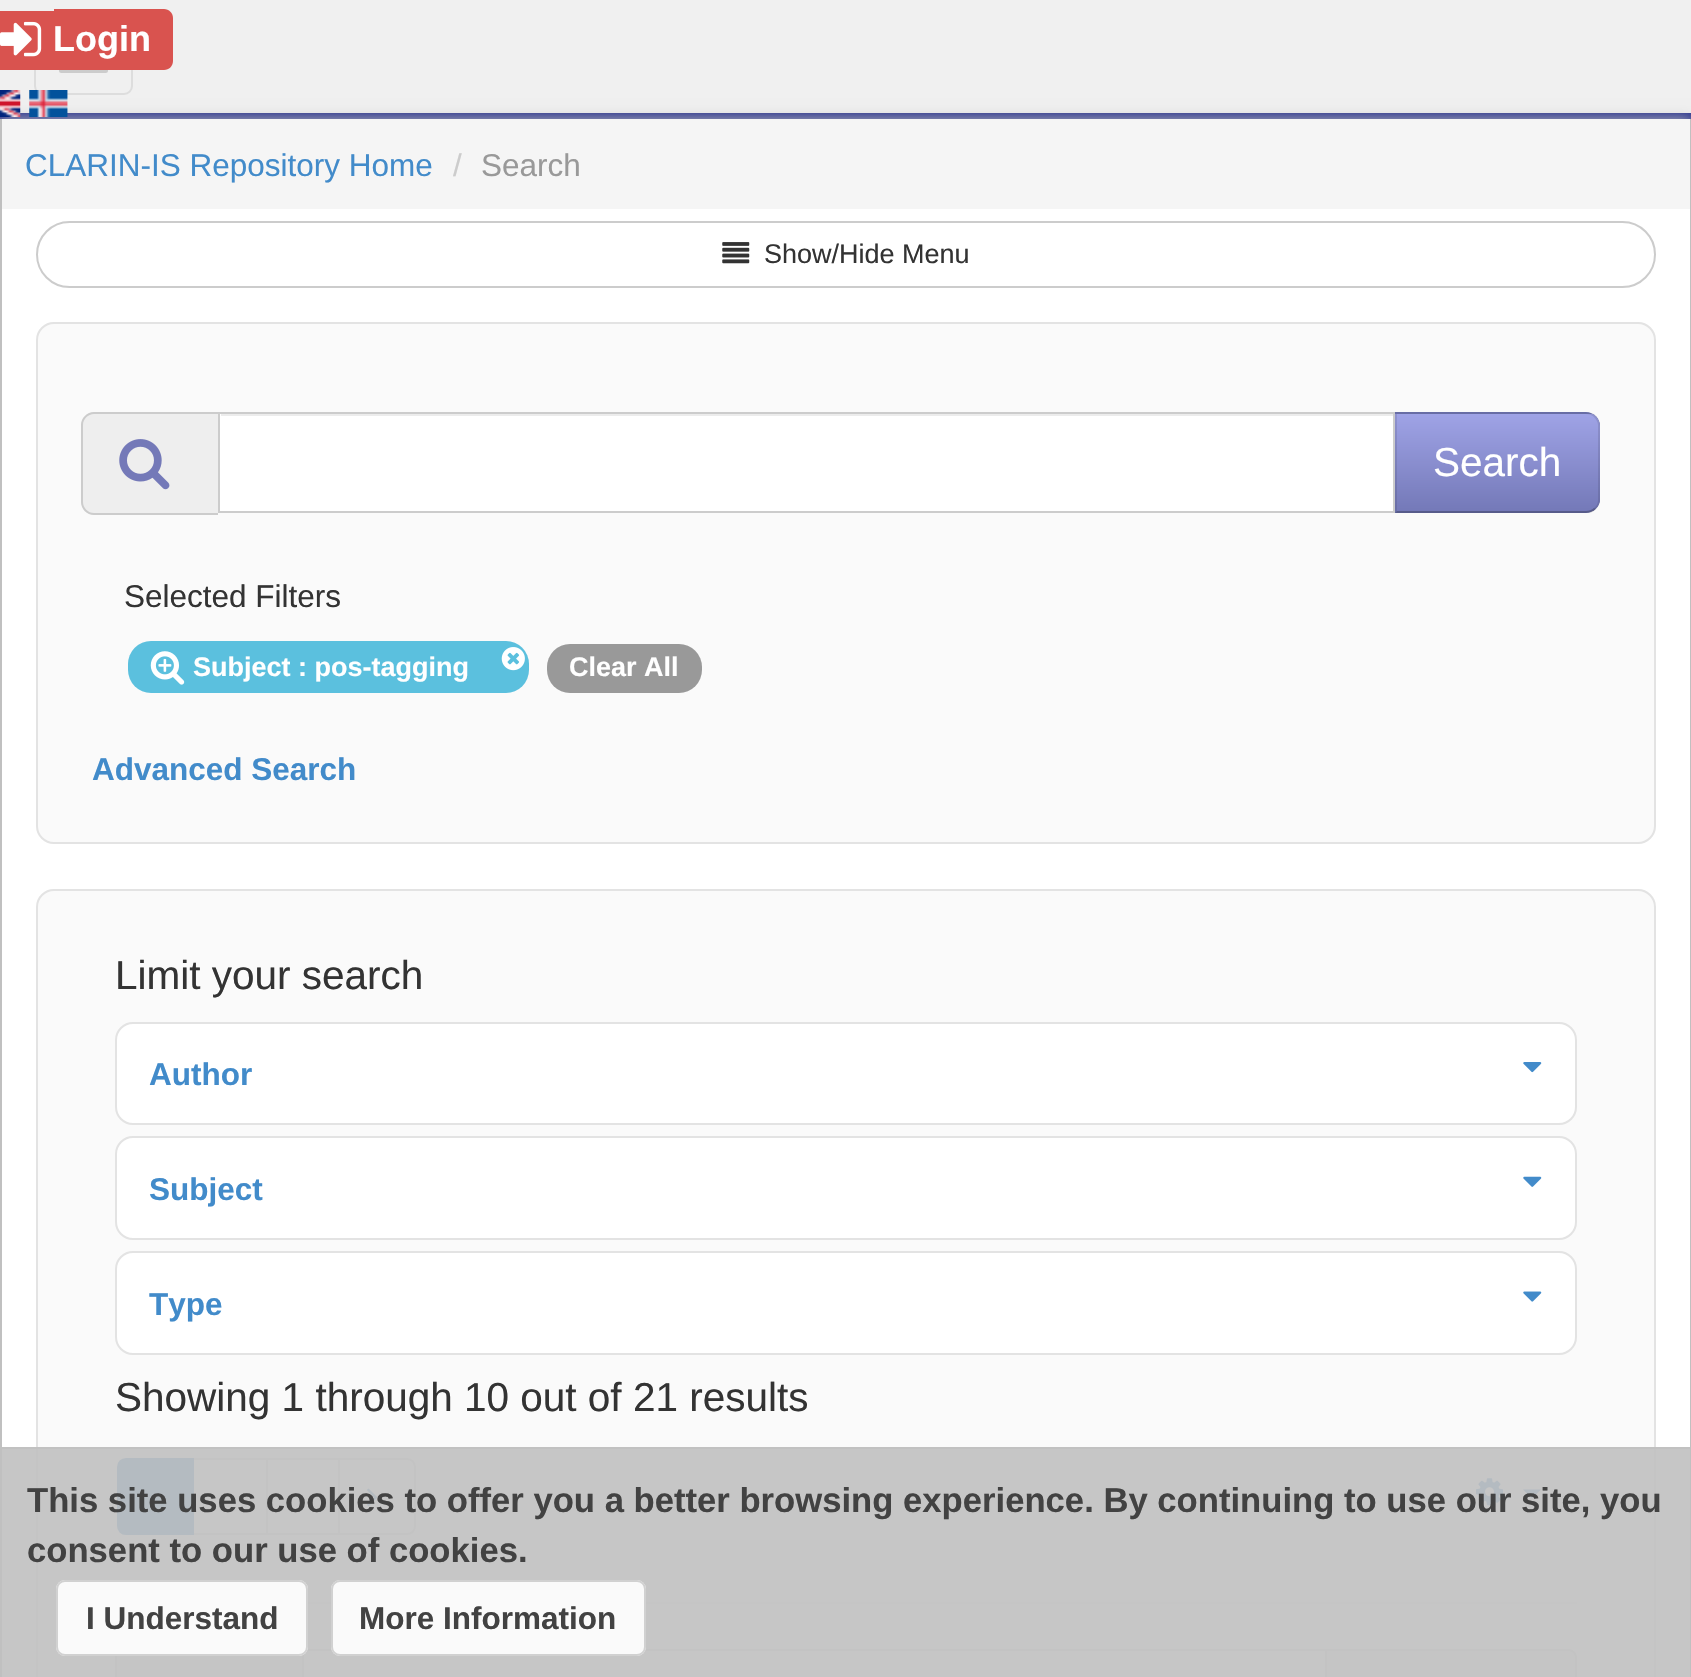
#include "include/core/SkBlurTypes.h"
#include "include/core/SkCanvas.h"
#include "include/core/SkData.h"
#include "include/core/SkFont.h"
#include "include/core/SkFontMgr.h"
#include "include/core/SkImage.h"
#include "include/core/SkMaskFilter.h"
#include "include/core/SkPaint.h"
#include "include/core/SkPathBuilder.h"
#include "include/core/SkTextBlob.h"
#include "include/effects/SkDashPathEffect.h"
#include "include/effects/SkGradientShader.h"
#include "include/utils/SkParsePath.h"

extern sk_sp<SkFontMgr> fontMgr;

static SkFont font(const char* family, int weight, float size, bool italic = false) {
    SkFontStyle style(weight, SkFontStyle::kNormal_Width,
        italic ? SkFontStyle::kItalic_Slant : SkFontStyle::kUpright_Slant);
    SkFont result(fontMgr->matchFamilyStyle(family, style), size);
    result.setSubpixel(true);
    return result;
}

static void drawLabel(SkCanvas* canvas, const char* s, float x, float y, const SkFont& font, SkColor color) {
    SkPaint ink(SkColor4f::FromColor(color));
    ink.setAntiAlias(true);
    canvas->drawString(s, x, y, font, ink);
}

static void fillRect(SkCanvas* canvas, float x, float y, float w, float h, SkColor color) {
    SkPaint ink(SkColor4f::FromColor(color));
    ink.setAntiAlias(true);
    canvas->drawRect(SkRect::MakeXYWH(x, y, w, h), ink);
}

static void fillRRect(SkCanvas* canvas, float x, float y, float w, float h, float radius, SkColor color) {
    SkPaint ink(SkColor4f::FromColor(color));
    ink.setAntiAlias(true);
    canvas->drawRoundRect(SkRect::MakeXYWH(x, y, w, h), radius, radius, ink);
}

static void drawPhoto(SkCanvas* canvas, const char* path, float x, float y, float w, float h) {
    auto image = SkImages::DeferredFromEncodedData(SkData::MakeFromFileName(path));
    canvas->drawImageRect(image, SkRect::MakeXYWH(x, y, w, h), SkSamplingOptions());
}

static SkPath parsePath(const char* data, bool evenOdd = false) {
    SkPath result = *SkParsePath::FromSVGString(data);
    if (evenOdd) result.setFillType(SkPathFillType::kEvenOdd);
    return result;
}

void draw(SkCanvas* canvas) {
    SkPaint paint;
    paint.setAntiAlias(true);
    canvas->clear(0xFFF0F0F0);
    fillRect(canvas, 0, 113, 1691, 6, 0xFF29338E);
    paint.setStroke(true);
    paint.setStrokeWidth(2);
    paint.setColor(0xFFDDDDDD);
    canvas->drawRoundRect(SkRect::MakeXYWH(35, 19, 97, 75), 8, 8, paint);
    fillRRect(canvas, 59, 68, 49, 5, 2.5f, 0xFFCCCCCC);
    fillRect(canvas, 0, 11, 54, 59, 0xFFD9534F);
    paint.setStroke(false);
    paint.setColor(0xFFD9534F);
    canvas->drawPath(parsePath("M54 9H164C169 9 173 13 173 18V61C173 66 169 70 164 70H54Z"), paint);
    drawPhoto(canvas, "assets/img1.png", 0, 21, 42, 36);
    SkFont font1 = font("Liberation Sans", 700, 36);
    drawLabel(canvas, "Login", 53, 51, font1, 0xFFFFFFFF);
    paint.setColor(0xFFC0C0C0);
    paint.setMaskFilter(SkMaskFilter::MakeBlur(kNormal_SkBlurStyle, 7));
    canvas->drawRect(SkRect::MakeXYWH(0, 119, 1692, 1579), paint);
    paint.setMaskFilter(nullptr);
    drawPhoto(canvas, "assets/img2.png", 0, 90, 21, 27);
    drawPhoto(canvas, "assets/img3.png", 29, 90, 39, 27);
    fillRect(canvas, 2, 209, 1688, 1468, 0xFFFFFFFF);
    fillRect(canvas, 1690, 119, 1, 1558, 0xFFC0C0C0);
    fillRect(canvas, 0, 119, 2, 1558, 0xFFC0C0C0);
    fillRect(canvas, 2, 119, 1688, 90, 0xFFF5F5F5);
    SkFont font2 = font("Liberation Sans", 400, 31.5f);
    drawLabel(canvas, "CLARIN-IS Repository Home", 25, 176, font2, 0xFF428BCA);
    drawLabel(canvas, "/", 453, 176, font2, 0xFFCCCCCC);
    drawLabel(canvas, "Search", 481, 176, font2, 0xFF999999);
    paint.setStroke(true);
    paint.setColor(0xFFCCCCCC);
    canvas->drawRoundRect(SkRect::MakeXYWH(37, 222, 1618, 65), 32.5f, 32.5f, paint);
    drawPhoto(canvas, "assets/img4.png", 722, 242, 28, 22);
    SkFont font3 = font("Liberation Sans", 400, 27);
    drawLabel(canvas, "Show/Hide Menu", 764, 263, font3, 0xFF333333);
    paint.setStroke(false);
    paint.setColor(0xFFFAFAFA);
    canvas->drawRoundRect(SkRect::MakeXYWH(37, 323, 1618, 520), 17, 17, paint);
    paint.setStroke(true);
    paint.setColor(0xFFE3E3E3);
    canvas->drawRoundRect(SkRect::MakeXYWH(37, 323, 1618, 520), 17, 17, paint);
    paint.setStroke(false);
    paint.setColor(0xFFEEEEEE);
    canvas->drawPath(parsePath("M95 412H218V515H95C87.5 515 81 508.5 81 501V426C81 418.5 87.5 412 95 412Z"), paint);
    paint.setColor(0xFFCCCCCC);
    canvas->drawPath(parsePath("M94 412H218V515H94C87 515 81 509 81 502V425C81 418 87 412 94 412ZM94 414H218V513H94C88 513 83 508 83 502V425C83 419 88 414 94 414Z", true), paint);
    drawPhoto(canvas, "assets/img5.png", 119, 439, 51, 51);
    fillRect(canvas, 220, 414, 1173, 97, 0xFFFFFFFF);
    fillRect(canvas, 221, 414, 1172, 2, 0xFFECECEC);
    paint.setStroke(true);
    canvas->drawRect(SkRect::MakeXYWH(219, 413, 1175, 99), paint);
    paint.setStroke(false);
    paint.setColor(0xFF7479B8);
    canvas->drawPath(parsePath("M1395 412H1586C1593.5 412 1600 418.5 1600 426V499C1600 506.5 1593.5 513 1586 513H1395Z"), paint);
    canvas->save();
    canvas->clipPath(parsePath("M1395 412H1586C1593.5 412 1600 418.5 1600 426V499C1600 506.5 1593.5 513 1586 513H1395Z"), true);
    {
        const SkColor colors[] = {0xFF9FA3E6, 0xFF7479B8};
        const float stops[] = {0, 1};
        const SkPoint ends[] = {{1497, 414}, {1497, 511}};
        paint.setShader(SkGradientShader::MakeLinear(ends, colors, stops, 2, SkTileMode::kClamp));
        paint.setAlpha(255);
    }
    canvas->drawRect(SkRect::MakeXYWH(1395, 414, 205, 97), paint);
    canvas->restore();
    paint.setShader(nullptr);
    paint.setColor(0x1A000000);
    canvas->drawPath(parsePath("M1596 416C1593 413 1590 412 1586 412H1395L1397 414H1586C1589 414 1592 415 1594 417Z"), paint);
    canvas->drawPath(parsePath("M1596 416C1598 418 1599 420 1600 423V502C1599 505 1598 507 1596 509L1594 508C1597 506 1598 503 1598 500V425C1598 422 1596 419 1594 417Z"), paint);
    paint.setColor(0x40000000);
    canvas->drawPath(parsePath("M1586 513C1590 513 1593 512 1596 509L1594 508C1592 510 1589 511 1586 511H1397L1395 513Z"), paint);
    paint.setColor(0x1A000000);
    canvas->drawPath(parsePath("M1397 414L1395 412V513L1397 511Z"), paint);
    SkFont font4 = font("Liberation Sans", 400, 40.5f);
    drawLabel(canvas, "Search", 1433, 476, font4, 0xFFFFFFFF);
    drawLabel(canvas, "Selected Filters", 124, 607, font2, 0xFF333333);
    fillRRect(canvas, 128, 641, 401, 52, 23, 0xFF5BC0DE);
    drawPhoto(canvas, "assets/img6.png", 150, 651, 35, 34);
    SkFont font5 = font("Liberation Sans", 700, 27);
    drawLabel(canvas, "Subject : pos-tagging", 193, 676, font5, 0xFFFFFFFF);
    drawPhoto(canvas, "assets/img7.png", 501, 647, 24, 24);
    fillRRect(canvas, 547, 644, 155, 49, 23, 0xFF999999);
    drawLabel(canvas, "Clear All", 569, 676, font5, 0xFFFFFFFF);
    SkFont font6 = font("Liberation Sans", 700, 31.5f);
    drawLabel(canvas, "Advanced Search", 92, 780, font6, 0xFF428BCA);
    paint.setColor(0xFFFAFAFA);
    canvas->drawRoundRect(SkRect::MakeXYWH(37, 890, 1618, 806), 17, 17, paint);
    paint.setStroke(true);
    paint.setColor(0xFFE3E3E3);
    canvas->drawRoundRect(SkRect::MakeXYWH(37, 890, 1618, 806), 17, 17, paint);
    drawLabel(canvas, "Limit your search", 115, 989, font4, 0xFF333333);
    paint.setStroke(false);
    paint.setColor(0xFFFFFFFF);
    canvas->drawRoundRect(SkRect::MakeXYWH(116, 1023, 1460, 101), 17, 17, paint);
    paint.setStroke(true);
    paint.setColor(0xFFE3E3E3);
    canvas->drawRoundRect(SkRect::MakeXYWH(116, 1023, 1460, 101), 17, 17, paint);
    drawLabel(canvas, "Author", 149, 1085, font6, 0xFF428BCA);
    drawPhoto(canvas, "assets/img8.png", 1523, 1062, 19, 11);
    paint.setStroke(false);
    paint.setColor(0xFFFFFFFF);
    canvas->drawRoundRect(SkRect::MakeXYWH(116, 1137, 1460, 102), 17, 17, paint);
    paint.setStroke(true);
    paint.setColor(0xFFE3E3E3);
    canvas->drawRoundRect(SkRect::MakeXYWH(116, 1137, 1460, 102), 17, 17, paint);
    drawLabel(canvas, "Subject", 149, 1200, font6, 0xFF428BCA);
    drawPhoto(canvas, "assets/img9.png", 1523, 1176, 19, 11);
    paint.setStroke(false);
    paint.setColor(0xFFFFFFFF);
    canvas->drawRoundRect(SkRect::MakeXYWH(116, 1252, 1460, 102), 17, 17, paint);
    paint.setStroke(true);
    paint.setColor(0xFFE3E3E3);
    canvas->drawRoundRect(SkRect::MakeXYWH(116, 1252, 1460, 102), 17, 17, paint);
    drawLabel(canvas, "Type", 149, 1315, font6, 0xFF428BCA);
    drawPhoto(canvas, "assets/img10.png", 1523, 1291, 19, 11);
    drawLabel(canvas, "Showing 1 through 10 out of 21 results", 115, 1411, font4, 0xFF333333);
    fillRect(canvas, 194, 1460, 72, 73, 0xFFFFFFFF);
    paint.setColor(0xFFDDDDDD);
    canvas->drawRect(SkRect::MakeXYWH(192, 1459, 75, 75), paint);
    paint.setStroke(false);
    paint.setColor(0xFF428BCA);
    canvas->drawPath(parsePath("M126 1459H193V1534H126C121.5 1534 118 1530.5 118 1526V1467C118 1462.5 121.5 1459 126 1459Z"), paint);
    paint.setStroke(true);
    canvas->drawPath(parsePath("M126 1459H193V1534H126C121.5 1534 118 1530.5 118 1526V1467C118 1462.5 121.5 1459 126 1459Z"), paint);
    paint.setStroke(false);
    paint.setColor(0xFFFFFFFF);
    canvas->drawRect(SkRect::MakeXYWH(267, 1459, 72, 75), paint);
    paint.setStroke(true);
    paint.setColor(0xFFDDDDDD);
    canvas->drawRect(SkRect::MakeXYWH(267, 1459, 72, 75), paint);
    paint.setStroke(false);
    paint.setColor(0xFFFFFFFF);
    canvas->drawPath(parsePath("M339 1459H407C411.5 1459 415 1462.5 415 1467V1526C415 1530.5 411.5 1534 407 1534H339Z"), paint);
    paint.setStroke(true);
    paint.setColor(0xFFDDDDDD);
    canvas->drawPath(parsePath("M339 1459H407C411.5 1459 415 1462.5 415 1467V1526C415 1530.5 411.5 1534 407 1534H339Z"), paint);
    drawPhoto(canvas, "assets/img11.png", 367, 1488, 11, 19);
    drawPhoto(canvas, "assets/img12.png", 1476, 1478, 27, 28);
    paint.setStroke(false);
    paint.setColor(0xFF428BCA);
    canvas->drawPath(parsePath("M1523 1489.5H1541L1532 1498.5Z"), paint);
    fillRect(canvas, 115, 1602, 1462, 2, 0xFFEEEEEE);
    paint.setColor(0xFFFFFFFF);
    canvas->drawRoundRect(SkRect::MakeXYWH(116, 1650, 1460, 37), 8, 8, paint);
    paint.setStroke(true);
    paint.setColor(0xFFDDDDDD);
    canvas->drawRoundRect(SkRect::MakeXYWH(116, 1650, 1460, 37), 8, 8, paint);
    paint.setStroke(false);
    paint.setColor(0xFFF5F5F5);
    canvas->drawPath(parsePath("M124 1650H303V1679C303 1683.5 299.5 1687 295 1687H116V1658C116 1653.5 119.5 1650 124 1650Z"), paint);
    paint.setStroke(true);
    paint.setColor(0xFFDDDDDD);
    canvas->drawPath(parsePath("M124 1650H303V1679C303 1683.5 299.5 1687 295 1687H116V1658C116 1653.5 119.5 1650 124 1650Z"), paint);
    paint.setStroke(false);
    paint.setColor(0xFFF5F5F5);
    canvas->drawPath(parsePath("M1326 1650H1568C1572.5 1650 1576 1653.5 1576 1658V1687H1334C1329.5 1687 1326 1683.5 1326 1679Z"), paint);
    paint.setStroke(true);
    paint.setColor(0xFFDDDDDD);
    canvas->drawPath(parsePath("M1326 1650H1568C1572.5 1650 1576 1653.5 1576 1658V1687H1334C1329.5 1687 1326 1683.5 1326 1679Z"), paint);
    fillRect(canvas, 2, 1447, 1688, 230, 0xE6C0C0C0);
    fillRect(canvas, 0, 1447, 1691, 2, 0xE6C0C0C0);
    SkFont font7 = font("Liberation Sans", 700, 34.65f);
    drawLabel(canvas, "This site uses cookies to offer you a better browsing experience. By continuing to use our site, you", 27, 1512, font7, 0xFF424242);
    drawLabel(canvas, "consent to our use of cookies.", 27, 1562, font7, 0xFF424242);
    fillRRect(canvas, 56, 1580, 252, 76, 9, 0xE6FFFFFF);
    paint.setColor(0xE6CCCCCC);
    canvas->drawRoundRect(SkRect::MakeXYWH(57, 1581, 250, 74), 8, 8, paint);
    drawLabel(canvas, "I Understand", 86, 1629, font6, 0xFF424242);
    fillRRect(canvas, 331, 1580, 315, 76, 9, 0xE6FFFFFF);
    canvas->drawRoundRect(SkRect::MakeXYWH(332, 1581, 313, 74), 8, 8, paint);
    drawLabel(canvas, "More Information", 359, 1629, font6, 0xFF424242);
}
